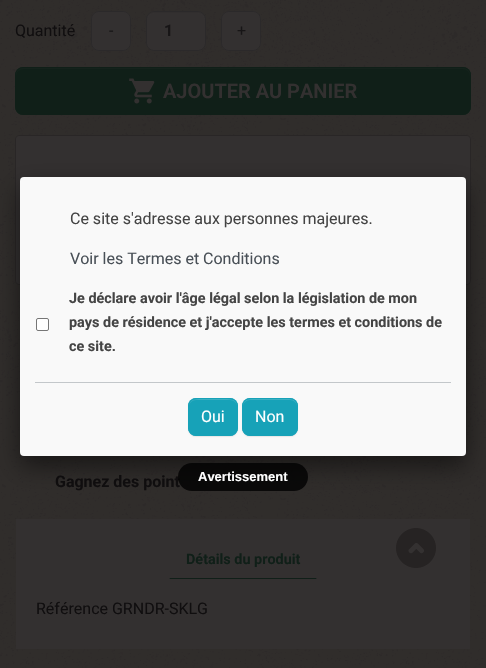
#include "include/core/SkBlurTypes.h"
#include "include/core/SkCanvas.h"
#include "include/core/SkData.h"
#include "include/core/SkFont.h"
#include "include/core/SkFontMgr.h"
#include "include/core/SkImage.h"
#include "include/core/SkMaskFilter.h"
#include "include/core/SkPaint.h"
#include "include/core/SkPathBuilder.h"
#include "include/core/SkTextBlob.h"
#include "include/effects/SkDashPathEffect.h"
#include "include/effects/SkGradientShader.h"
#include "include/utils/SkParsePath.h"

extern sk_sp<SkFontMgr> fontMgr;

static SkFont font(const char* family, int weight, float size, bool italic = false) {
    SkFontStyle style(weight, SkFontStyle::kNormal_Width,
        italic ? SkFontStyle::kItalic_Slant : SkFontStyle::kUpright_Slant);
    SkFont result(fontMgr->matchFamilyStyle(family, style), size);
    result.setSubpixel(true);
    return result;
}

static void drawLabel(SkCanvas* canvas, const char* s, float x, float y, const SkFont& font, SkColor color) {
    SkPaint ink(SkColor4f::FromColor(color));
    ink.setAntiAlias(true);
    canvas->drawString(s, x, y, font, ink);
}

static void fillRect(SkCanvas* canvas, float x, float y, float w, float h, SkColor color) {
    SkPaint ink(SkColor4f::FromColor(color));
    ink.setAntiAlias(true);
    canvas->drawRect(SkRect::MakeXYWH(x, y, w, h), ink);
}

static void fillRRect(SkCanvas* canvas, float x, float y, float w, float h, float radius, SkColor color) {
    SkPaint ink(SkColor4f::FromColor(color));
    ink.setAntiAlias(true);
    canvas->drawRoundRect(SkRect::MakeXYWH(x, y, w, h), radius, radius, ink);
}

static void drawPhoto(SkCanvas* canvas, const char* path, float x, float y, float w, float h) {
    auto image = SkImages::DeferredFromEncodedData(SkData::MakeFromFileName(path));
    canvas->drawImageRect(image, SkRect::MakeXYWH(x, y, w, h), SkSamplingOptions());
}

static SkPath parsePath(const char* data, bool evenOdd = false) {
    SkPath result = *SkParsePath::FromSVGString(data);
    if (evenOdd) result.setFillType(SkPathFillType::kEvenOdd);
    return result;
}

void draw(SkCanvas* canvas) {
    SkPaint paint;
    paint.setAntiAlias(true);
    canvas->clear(0xFFFFFFFF);
    drawPhoto(canvas, "assets/img1.png", 0, 0, 486, 668);
    SkFont font1 = font("Roboto", 400, 16);
    drawLabel(canvas, "Quantité", 15, 36, font1, 0xFF100E0F);
    paint.setColor(0xFF333030);
    canvas->drawRoundRect(SkRect::MakeXYWH(91.5f, 11.5f, 39, 39), 7.5f, 7.5f, paint);
    paint.setStroke(true);
    paint.setStrokeWidth(1);
    paint.setColor(0xFF2B292A);
    canvas->drawRoundRect(SkRect::MakeXYWH(91.5f, 11.5f, 39, 39), 7.5f, 7.5f, paint);
    drawLabel(canvas, "-", 109, 36, font1, 0xFF171516);
    fillRRect(canvas, 147, 12, 58, 38, 7, 0xFF333030);
    paint.setStroke(false);
    paint.setColor(0x120B0808);
    canvas->drawPath(parsePath("M154 13H198C202 13 205 16 205 20C205 11 198 12 191 12H161C154 12 147 11 147 20C147 16 150 13 154 13Z"), paint);
    paint.setStroke(true);
    paint.setColor(0xFF2B292A);
    canvas->drawRoundRect(SkRect::MakeXYWH(146.5f, 11.5f, 59, 39), 7.5f, 7.5f, paint);
    SkFont font2 = font("Roboto", 700, 16);
    drawLabel(canvas, "1", 164, 36, font2, 0xFF171516);
    paint.setStroke(false);
    paint.setColor(0xFF333030);
    canvas->drawRoundRect(SkRect::MakeXYWH(221.5f, 11.5f, 39, 39), 7.5f, 7.5f, paint);
    paint.setStroke(true);
    paint.setColor(0xFF2B292A);
    canvas->drawRoundRect(SkRect::MakeXYWH(221.5f, 11.5f, 39, 39), 7.5f, 7.5f, paint);
    drawLabel(canvas, "+", 237, 36, font1, 0xFF171516);
    fillRRect(canvas, 15, 67, 456, 48, 8, 0xFF101F18);
    paint.setStroke(false);
    paint.setColor(0xFF15221C);
    canvas->drawPath(parsePath("M23 69H463C467 69 470 72 470 76V75C470 71 467 68 463 68H23C19 68 16 71 16 75V76C16 72 19 69 23 69Z"), paint);
    paint.setStroke(true);
    paint.setColor(0xFF101F18);
    canvas->drawRoundRect(SkRect::MakeXYWH(15.5f, 67.5f, 455, 47), 7.5f, 7.5f, paint);
    drawPhoto(canvas, "assets/img2.png", 129, 78, 26, 26);
    SkFont font3 = font("Roboto", 600, 20);
    drawLabel(canvas, "AJOUTER AU PANIER", 163, 98, font3, 0xFF333030);
    paint.setStroke(false);
    paint.setColor(0xFF333030);
    canvas->drawRoundRect(SkRect::MakeXYWH(15.5f, 135.5f, 455, 149), 3.5f, 3.5f, paint);
    paint.setStroke(true);
    paint.setColor(0xFF292626);
    canvas->drawRoundRect(SkRect::MakeXYWH(15.5f, 135.5f, 455, 149), 3.5f, 3.5f, paint);
    drawLabel(canvas, "Gagnez des point", 55, 487, font2, 0xFF100E0F);
    fillRect(canvas, 16, 519, 454, 130, 0xFF333030);
    canvas->save();
    canvas->clipRect(SkRect::MakeXYWH(36, 539, 414, 40));
    paint.setStroke(false);
    paint.setColor(0xFF101F18);
    canvas->drawPath(parsePath("M318 581H168L170 578H316Z"), paint);
    canvas->restore();
    SkFont font4 = font("Roboto", 700, 14.4f);
    drawLabel(canvas, "Détails du produit", 186, 564, font4, 0xFF101F18);
    drawLabel(canvas, "Référence GRNDR-SKLG", 36, 614, font1, 0xFF100E0F);
    drawPhoto(canvas, "assets/img3.png", 396, 528, 40, 40);
    paint.setColor(0x80000000);
    paint.setMaskFilter(SkMaskFilter::MakeBlur(kNormal_SkBlurStyle, 12.5f));
    canvas->drawRoundRect(SkRect::MakeXYWH(20, 187, 446, 279), 4, 4, paint);
    paint.setMaskFilter(nullptr);
    fillRRect(canvas, 20, 177, 446, 279, 4, 0xFFF9F9F9);
    drawLabel(canvas, "Ce site s'adresse aux personnes majeures.", 70, 224, font1, 0xFF444444);
    drawLabel(canvas, "Voir les Termes et Conditions", 70, 264, font1, 0xFF495057);
    paint.setColor(0xFFFFFFFF);
    canvas->drawRoundRect(SkRect::MakeXYWH(36.5f, 318.5f, 12, 12), 1.5f, 1.5f, paint);
    paint.setStroke(true);
    paint.setColor(0xFF767676);
    canvas->drawRoundRect(SkRect::MakeXYWH(36.5f, 318.5f, 12, 12), 1.5f, 1.5f, paint);
    drawLabel(canvas, "Je déclare avoir l'âge légal selon la législation de mon", 69, 303, font4, 0xFF444444);
    drawLabel(canvas, "pays de résidence et j'accepte les termes et conditions de", 69, 327, font4, 0xFF444444);
    drawLabel(canvas, "ce site.", 69, 351, font4, 0xFF444444);
    fillRect(canvas, 35, 382, 416, 1, 0xFFC3C7CA);
    paint.setStroke(false);
    paint.setColor(0x12000000);
    paint.setMaskFilter(SkMaskFilter::MakeBlur(kNormal_SkBlurStyle, 0.5f));
    canvas->drawRoundRect(SkRect::MakeXYWH(188, 399, 50, 38), 8, 8, paint);
    paint.setMaskFilter(nullptr);
    fillRRect(canvas, 188, 398, 50, 38, 8, 0xFF17A2B8);
    paint.setColor(0xFF3AB0C3);
    canvas->drawPath(parsePath("M196 400H230C234 400 237 403 237 407C237 399 231 399 224 399H202C195 399 189 399 189 407C189 403 192 400 196 400Z"), paint);
    paint.setStroke(true);
    paint.setColor(0xFF17A2B8);
    canvas->drawRoundRect(SkRect::MakeXYWH(188.5f, 398.5f, 49, 37), 7.5f, 7.5f, paint);
    drawLabel(canvas, "Oui", 201, 422, font1, 0xFFFFFFFF);
    paint.setStroke(false);
    paint.setColor(0x12000000);
    paint.setMaskFilter(SkMaskFilter::MakeBlur(kNormal_SkBlurStyle, 0.5f));
    canvas->drawRoundRect(SkRect::MakeXYWH(242, 399, 56, 38), 8, 8, paint);
    paint.setMaskFilter(nullptr);
    fillRRect(canvas, 242, 398, 56, 38, 8, 0xFF17A2B8);
    paint.setColor(0xFF3AB0C3);
    canvas->drawPath(parsePath("M250 400H290C294 400 297 403 297 407C297 398 290 399 283 399H257C250 399 243 398 243 407C243 403 246 400 250 400Z"), paint);
    paint.setStroke(true);
    paint.setColor(0xFF17A2B8);
    canvas->drawRoundRect(SkRect::MakeXYWH(242.5f, 398.5f, 55, 37), 7.5f, 7.5f, paint);
    drawLabel(canvas, "Non", 255, 422, font1, 0xFFFFFFFF);
    fillRRect(canvas, 178, 463, 130, 28, 14, 0xCC000000);
    SkFont font5 = font("Liberation Sans", 700, 13);
    drawLabel(canvas, "Avertissement", 198, 481, font5, 0xFFFFFFFF);
}
